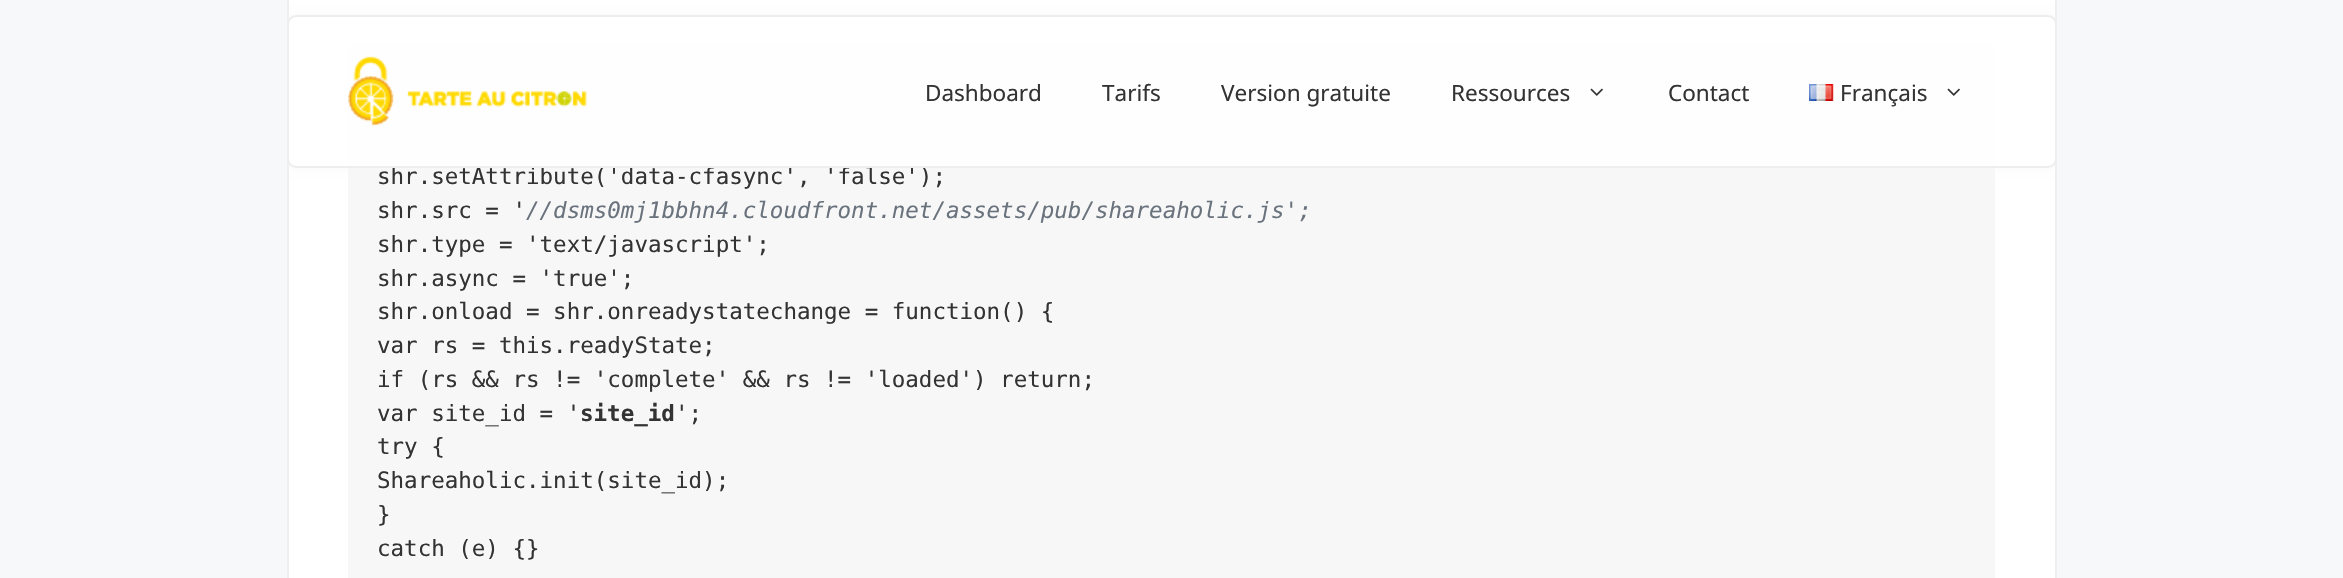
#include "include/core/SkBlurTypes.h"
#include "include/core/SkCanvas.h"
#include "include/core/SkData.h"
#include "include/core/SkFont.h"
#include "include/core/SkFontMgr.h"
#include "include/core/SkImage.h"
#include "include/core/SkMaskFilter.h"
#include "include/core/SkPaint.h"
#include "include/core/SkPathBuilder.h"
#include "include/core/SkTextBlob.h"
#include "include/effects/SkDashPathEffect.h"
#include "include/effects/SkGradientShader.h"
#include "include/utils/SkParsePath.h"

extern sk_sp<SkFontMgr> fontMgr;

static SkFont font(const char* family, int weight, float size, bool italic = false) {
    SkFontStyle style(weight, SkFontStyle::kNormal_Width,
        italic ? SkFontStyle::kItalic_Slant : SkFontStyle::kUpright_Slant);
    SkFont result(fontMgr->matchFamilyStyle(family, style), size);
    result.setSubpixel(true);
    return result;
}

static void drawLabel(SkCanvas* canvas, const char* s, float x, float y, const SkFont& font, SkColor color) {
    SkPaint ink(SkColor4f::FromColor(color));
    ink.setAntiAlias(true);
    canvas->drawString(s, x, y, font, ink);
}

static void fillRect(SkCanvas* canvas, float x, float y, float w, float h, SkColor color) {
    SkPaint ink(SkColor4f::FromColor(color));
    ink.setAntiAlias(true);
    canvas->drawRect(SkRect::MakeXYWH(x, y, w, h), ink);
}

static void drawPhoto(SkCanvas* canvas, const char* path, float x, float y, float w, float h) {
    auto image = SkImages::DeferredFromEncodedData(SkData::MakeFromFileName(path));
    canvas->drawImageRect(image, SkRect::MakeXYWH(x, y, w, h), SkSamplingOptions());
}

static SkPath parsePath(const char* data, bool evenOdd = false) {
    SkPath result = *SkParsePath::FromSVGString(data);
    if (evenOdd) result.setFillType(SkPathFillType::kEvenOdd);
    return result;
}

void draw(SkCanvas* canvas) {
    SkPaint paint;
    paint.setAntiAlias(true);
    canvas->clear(0xFFF7F8F9);
    paint.setColor(0xFFFFFFFF);
    canvas->drawRect(SkRect::MakeXYWH(288, -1, 1768, 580), paint);
    paint.setStroke(true);
    paint.setStrokeWidth(2);
    paint.setColor(0xFFEEEEEE);
    canvas->drawRect(SkRect::MakeXYWH(288, -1, 1768, 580), paint);
    fillRect(canvas, 348, 44, 1647, 534, 0xFFF7F7F7);
    canvas->save();
    canvas->clipPath(parsePath("M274 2H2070V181H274ZM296 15H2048C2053 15 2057 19 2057 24V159C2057 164 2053 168 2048 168H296C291 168 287 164 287 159V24C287 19 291 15 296 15Z", true), true);
    paint.setStroke(false);
    paint.setColor(0xFFF9F9F9);
    paint.setMaskFilter(SkMaskFilter::MakeBlur(kNormal_SkBlurStyle, 4));
    canvas->drawRoundRect(SkRect::MakeXYWH(287, 15, 1770, 153), 9, 9, paint);
    paint.setMaskFilter(nullptr);
    canvas->restore();
    SkFont font1 = font("DejaVu Sans Mono", 400, 22.5f);
    drawLabel(canvas, "shr.setAttribute('data-cfasync', 'false');", 377, 184, font1, 0xFF333333);
    paint.setColor(0xC9FFFFFF);
    canvas->drawRoundRect(SkRect::MakeXYWH(288, 16, 1768, 151), 8, 8, paint);
    paint.setStroke(true);
    paint.setColor(0xFFEEEEEE);
    canvas->drawRoundRect(SkRect::MakeXYWH(288, 16, 1768, 151), 8, 8, paint);
    drawPhoto(canvas, "assets/img1.png", 348, 56, 239, 71);
    SkFont font2 = font("Noto Sans", 400, 22.5f);
    drawLabel(canvas, "Dashboard", 925, 101, font2, 0xFF333333);
    drawLabel(canvas, "Tarifs", 1102, 101, font2, 0xFF333333);
    drawLabel(canvas, "Version gratuite", 1221, 101, font2, 0xFF333333);
    drawLabel(canvas, "Ressources", 1451, 101, font2, 0xFF333333);
    drawPhoto(canvas, "assets/img2.png", 1590, 88, 13, 8);
    drawLabel(canvas, "Contact", 1668, 101, font2, 0xFF333333);
    drawPhoto(canvas, "assets/img3.png", 1809, 84, 25, 17);
    drawLabel(canvas, "Français", 1840, 101, font2, 0xFF333333);
    drawPhoto(canvas, "assets/img2.png", 1947, 88, 13, 8);
    drawLabel(canvas, "shr.src = '", 377, 218, font1, 0xFF333333);
    SkFont font3 = font("DejaVu Sans Mono", 400, 22.5f, true);
    drawLabel(canvas, "//dsms0mj1bbhn4.cloudfront.net/assets/pub/shareaholic.js';", 526, 218, font3, 0xFF6A737D);
    drawLabel(canvas, "shr.type = 'text/javascript';", 377, 252, font1, 0xFF333333);
    drawLabel(canvas, "shr.async = 'true';", 377, 286, font1, 0xFF333333);
    drawLabel(canvas, "shr.onload = shr.onreadystatechange = function() {", 377, 319, font1, 0xFF333333);
    drawLabel(canvas, "var rs = this.readyState;", 377, 353, font1, 0xFF333333);
    drawLabel(canvas, "if (rs && rs != 'complete' && rs != 'loaded') return;", 377, 387, font1, 0xFF333333);
    drawLabel(canvas, "var site_id = '", 377, 421, font1, 0xFF333333);
    SkFont font4 = font("DejaVu Sans Mono", 700, 22.5f);
    drawLabel(canvas, "site_id", 580, 421, font4, 0xFF333333);
    drawLabel(canvas, "';", 675, 421, font1, 0xFF333333);
    drawLabel(canvas, "try {", 377, 454, font1, 0xFF333333);
    drawLabel(canvas, "Shareaholic.init(site_id);", 377, 488, font1, 0xFF333333);
    drawLabel(canvas, "}", 377, 522, font1, 0xFF333333);
    drawLabel(canvas, "catch (e) {}", 377, 556, font1, 0xFF333333);
}
